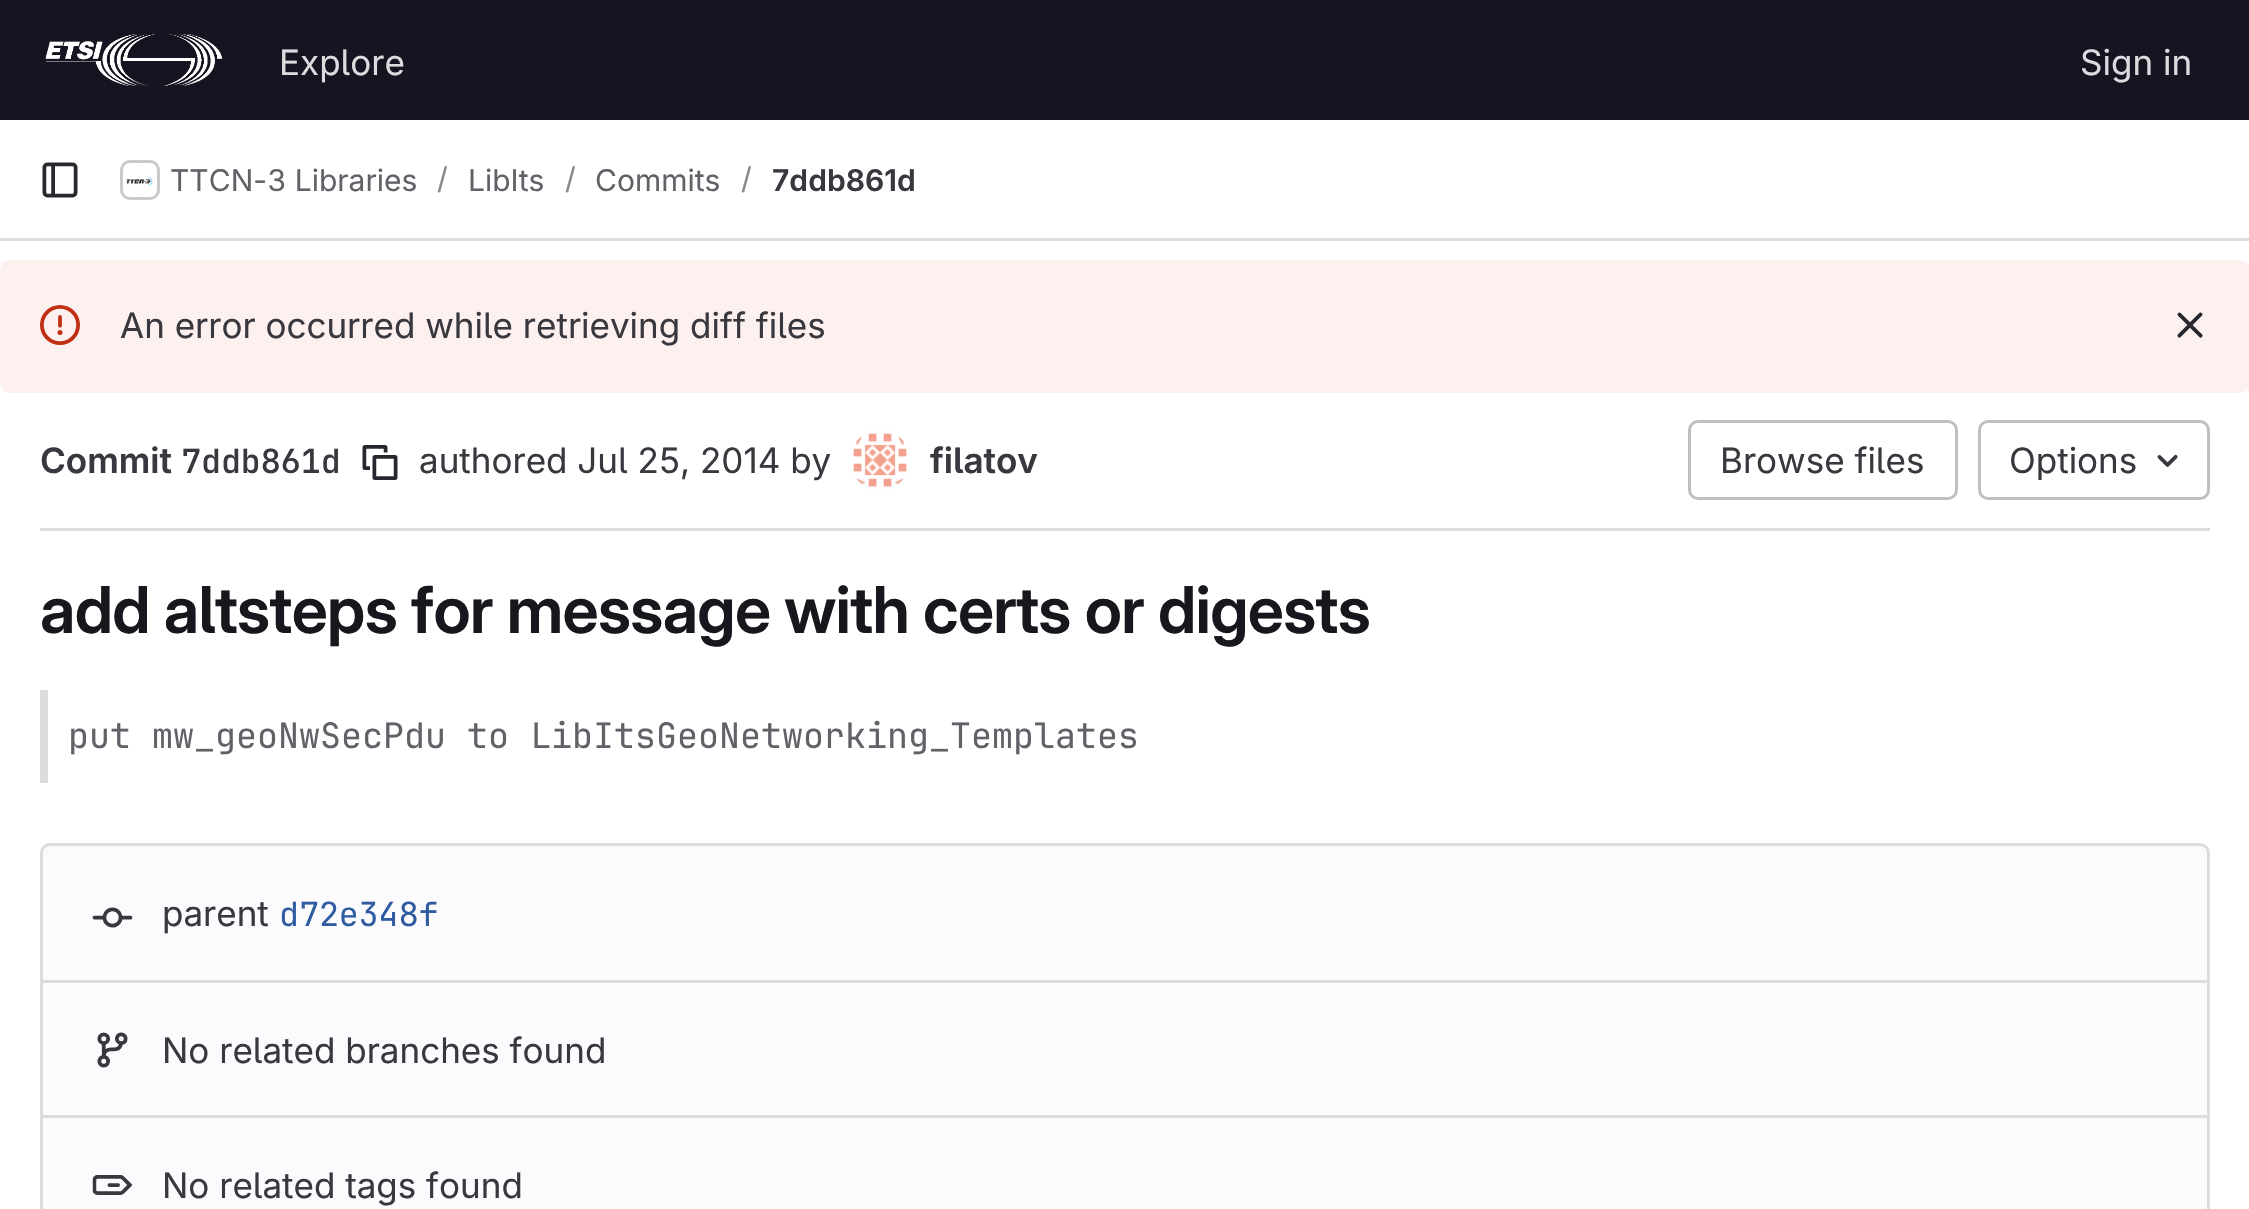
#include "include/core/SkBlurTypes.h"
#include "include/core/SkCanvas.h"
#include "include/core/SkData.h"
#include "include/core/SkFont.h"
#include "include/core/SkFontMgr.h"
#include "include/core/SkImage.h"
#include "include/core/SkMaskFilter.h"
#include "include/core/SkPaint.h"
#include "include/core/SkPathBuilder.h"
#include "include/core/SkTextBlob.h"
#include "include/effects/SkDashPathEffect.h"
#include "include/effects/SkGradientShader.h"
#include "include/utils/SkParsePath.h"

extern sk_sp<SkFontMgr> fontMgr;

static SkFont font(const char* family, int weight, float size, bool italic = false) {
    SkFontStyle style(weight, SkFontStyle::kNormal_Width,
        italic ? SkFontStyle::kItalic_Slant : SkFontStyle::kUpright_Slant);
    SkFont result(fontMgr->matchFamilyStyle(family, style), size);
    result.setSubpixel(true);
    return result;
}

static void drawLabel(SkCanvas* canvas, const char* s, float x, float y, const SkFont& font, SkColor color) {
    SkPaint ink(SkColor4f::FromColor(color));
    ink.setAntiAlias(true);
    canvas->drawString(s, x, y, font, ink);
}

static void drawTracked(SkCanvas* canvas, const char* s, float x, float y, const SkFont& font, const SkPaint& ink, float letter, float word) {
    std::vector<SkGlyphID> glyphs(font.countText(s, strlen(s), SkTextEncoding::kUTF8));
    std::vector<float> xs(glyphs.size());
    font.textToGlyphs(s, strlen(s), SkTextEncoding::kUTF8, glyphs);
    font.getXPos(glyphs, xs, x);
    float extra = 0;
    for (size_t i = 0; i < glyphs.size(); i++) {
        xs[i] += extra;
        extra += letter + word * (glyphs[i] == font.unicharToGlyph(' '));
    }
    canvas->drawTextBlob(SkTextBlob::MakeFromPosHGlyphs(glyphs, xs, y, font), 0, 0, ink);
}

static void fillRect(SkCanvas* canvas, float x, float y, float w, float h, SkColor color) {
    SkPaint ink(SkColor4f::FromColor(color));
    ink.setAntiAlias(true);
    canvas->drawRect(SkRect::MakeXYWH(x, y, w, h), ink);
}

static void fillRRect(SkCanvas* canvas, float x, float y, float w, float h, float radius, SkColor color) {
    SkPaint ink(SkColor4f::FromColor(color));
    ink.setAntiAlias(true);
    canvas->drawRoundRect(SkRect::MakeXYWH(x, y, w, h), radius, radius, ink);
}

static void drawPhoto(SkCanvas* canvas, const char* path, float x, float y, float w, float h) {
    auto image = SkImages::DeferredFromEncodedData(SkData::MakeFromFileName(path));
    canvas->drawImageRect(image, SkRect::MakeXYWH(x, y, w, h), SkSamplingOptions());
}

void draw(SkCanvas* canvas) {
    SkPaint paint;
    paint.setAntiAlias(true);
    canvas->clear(0xFFFFFFFF);
    fillRect(canvas, 0, 0, 2249, 120, 0xFF171321);
    drawPhoto(canvas, "assets/img1.png", 45, 33, 178, 53);
    SkFont font1 = font("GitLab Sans", 400, 35);
    drawLabel(canvas, "Explore", 279, 75, font1, 0xFFDCDCDE);
    drawLabel(canvas, "Sign in", 2080, 75, font1, 0xFFDCDCDE);
    fillRect(canvas, 0, 238, 2249, 3, 0xFFDCDCDE);
    drawPhoto(canvas, "assets/img2.png", 42, 162, 36, 36);
    paint.setStroke(true);
    paint.setStrokeWidth(3);
    paint.setColor(0xFFDCDCDE);
    canvas->drawRoundRect(SkRect::MakeXYWH(121.5f, 161.5f, 37, 37), 8.5f, 8.5f, paint);
    drawPhoto(canvas, "assets/img3.png", 126, 177, 27, 9);
    paint.setColor(0x14050506);
    canvas->drawRoundRect(SkRect::MakeXYWH(121.5f, 161.5f, 37, 37), 8.5f, 8.5f, paint);
    SkFont font2 = font("GitLab Sans", 400, 30);
    drawLabel(canvas, "TTCN-3 Libraries", 170, 191, font2, 0xFF626168);
    drawLabel(canvas, "/", 437, 189, font2, 0xFF89888D);
    drawLabel(canvas, "LibIts", 468, 191, font2, 0xFF626168);
    drawLabel(canvas, "/", 565, 189, font2, 0xFF89888D);
    drawLabel(canvas, "Commits", 595, 191, font2, 0xFF626168);
    drawLabel(canvas, "/", 741, 189, font2, 0xFF89888D);
    SkFont font3 = font("GitLab Sans", 600, 30);
    drawLabel(canvas, "7ddb861d", 772, 191, font3, 0xFF3A383F);
    fillRRect(canvas, 0, 260, 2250, 133, 10, 0xFFFCF1EF);
    drawPhoto(canvas, "assets/img4.png", 40, 305, 40, 40);
    drawLabel(canvas, "An error occurred while retrieving diff files", 120, 338, font1, 0xFF3A383F);
    drawPhoto(canvas, "assets/img5.png", 2177, 312, 26, 26);
    SkFont font4 = font("GitLab Sans", 600, 35);
    drawLabel(canvas, "Commit", 40, 473, font4, 0xFF3A383F);
    SkFont font5 = font("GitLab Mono", 600, 33.25f);
    drawLabel(canvas, "7ddb861d", 181, 473, font5, 0xFF3A383F);
    drawPhoto(canvas, "assets/img6.png", 362, 445, 36, 35);
    drawLabel(canvas, "authored Jul 25, 2014 by", 419, 473, font1, 0xFF3A383F);
    paint.setColor(0xFFE7E7E9);
    canvas->drawCircle(880, 460, 28.5f, paint);
    drawPhoto(canvas, "assets/img7.png", 850, 430, 60, 60);
    drawLabel(canvas, "filatov", 930, 473, font4, 0xFF3A383F);
    paint.setColor(0xFFBFBFC3);
    canvas->drawRoundRect(SkRect::MakeXYWH(1689.5f, 421.5f, 267, 77), 8.5f, 8.5f, paint);
    drawLabel(canvas, "Browse files", 1720, 473, font1, 0xFF3A383F);
    canvas->drawRoundRect(SkRect::MakeXYWH(1979.5f, 421.5f, 229, 77), 8.5f, 8.5f, paint);
    canvas->save();
    canvas->clipRect(SkRect::MakeXYWH(2010, 440, 128, 40));
    drawLabel(canvas, "Options", 2009, 473, font1, 0xFF3A383F);
    canvas->restore();
    drawPhoto(canvas, "assets/img8.png", 2157, 454, 21, 13);
    fillRect(canvas, 40, 528, 2170, 3, 0xFFDCDCDE);
    SkFont font6 = font("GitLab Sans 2", 600, 64.6f);
    paint.setStroke(false);
    paint.setColor(0xFF18171D);
    drawTracked(canvas, "add altsteps for message with certs or digests", 40, 633, font6, paint, -0.65f, 0);
    fillRect(canvas, 40, 690, 8, 93, 0xFFDCDCDE);
    SkFont font7 = font("GitLab Mono", 400, 35);
    drawLabel(canvas, "put mw_geoNwSecPdu to LibItsGeoNetworking_Templates", 68, 748, font7, 0xFF626168);
    paint.setColor(0xFFFBFAFD);
    canvas->drawRoundRect(SkRect::MakeXYWH(41.5f, 844.5f, 2167, 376), 8.5f, 8.5f, paint);
    paint.setStroke(true);
    paint.setColor(0xFFDCDCDE);
    canvas->drawRoundRect(SkRect::MakeXYWH(41.5f, 844.5f, 2167, 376), 8.5f, 8.5f, paint);
    drawPhoto(canvas, "assets/img9.png", 92, 907, 41, 21);
    drawLabel(canvas, "parent", 162, 926, font1, 0xFF3A383F);
    SkFont font8 = font("GitLab Mono", 400, 33.25f);
    drawLabel(canvas, "d72e348f", 279, 926, font8, 0xFF2F5CA0);
    fillRect(canvas, 43, 980, 2165, 3, 0xFFDCDCDE);
    drawPhoto(canvas, "assets/img10.png", 97, 1032, 31, 36);
    drawLabel(canvas, "No related branches found", 162, 1063, font1, 0xFF3A383F);
    fillRect(canvas, 43, 1115, 2165, 3, 0xFFDCDCDE);
    drawPhoto(canvas, "assets/img11.png", 92, 1175, 41, 20);
    drawLabel(canvas, "No related tags found", 162, 1198, font1, 0xFF3A383F);
}
